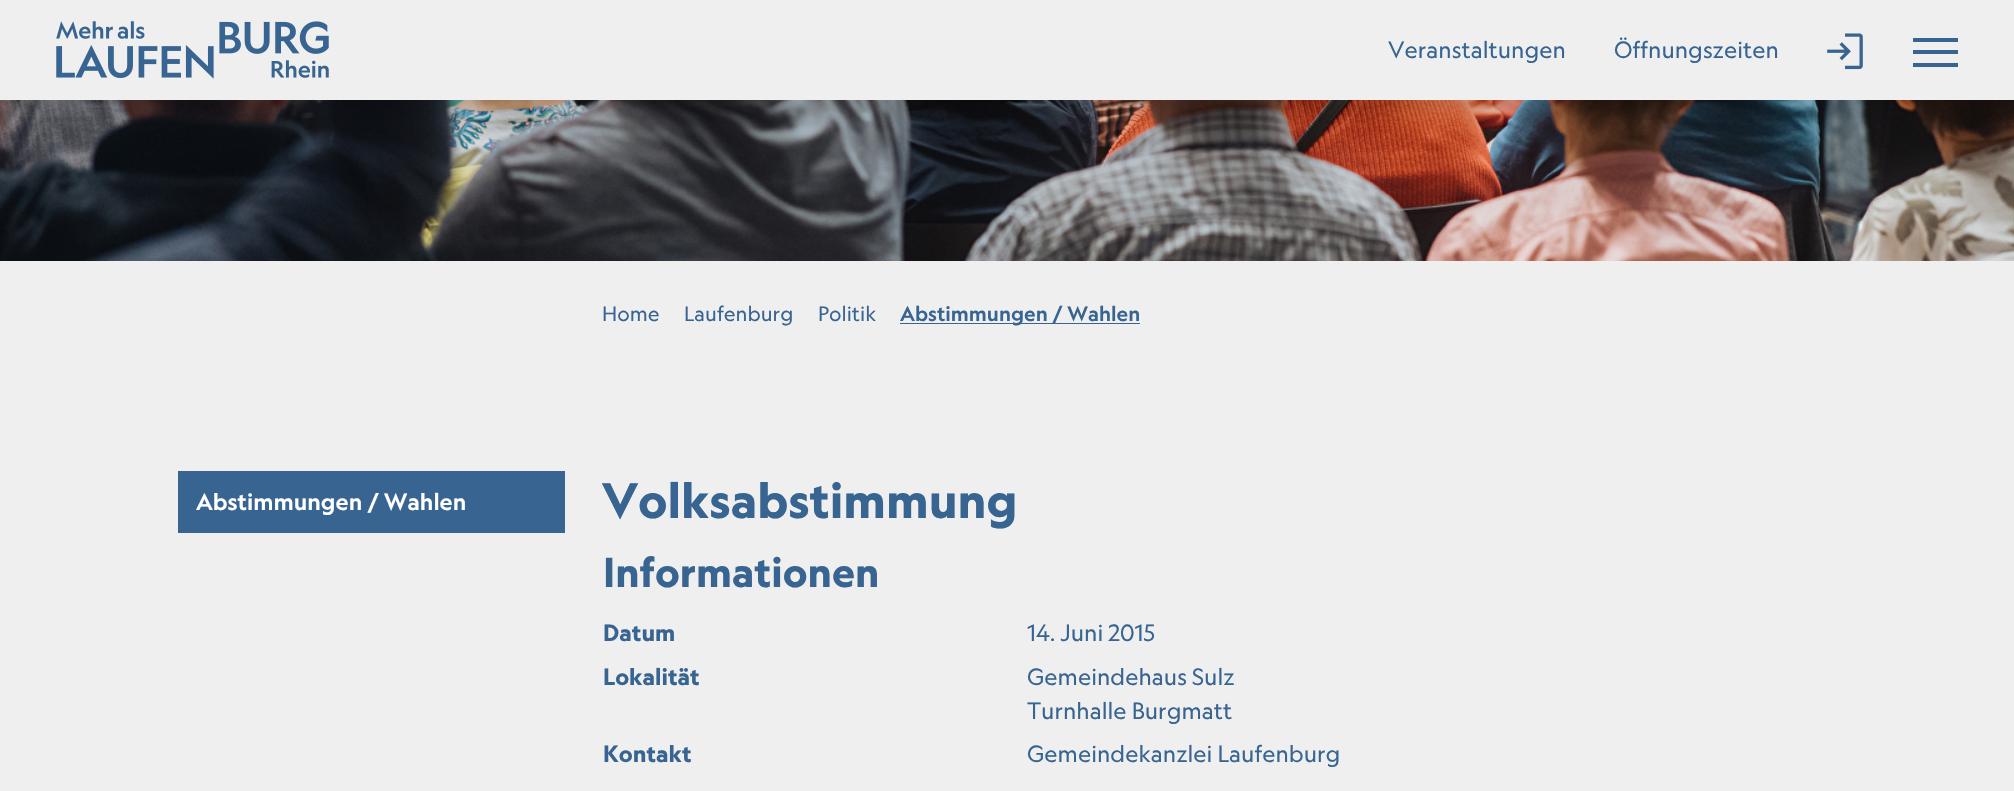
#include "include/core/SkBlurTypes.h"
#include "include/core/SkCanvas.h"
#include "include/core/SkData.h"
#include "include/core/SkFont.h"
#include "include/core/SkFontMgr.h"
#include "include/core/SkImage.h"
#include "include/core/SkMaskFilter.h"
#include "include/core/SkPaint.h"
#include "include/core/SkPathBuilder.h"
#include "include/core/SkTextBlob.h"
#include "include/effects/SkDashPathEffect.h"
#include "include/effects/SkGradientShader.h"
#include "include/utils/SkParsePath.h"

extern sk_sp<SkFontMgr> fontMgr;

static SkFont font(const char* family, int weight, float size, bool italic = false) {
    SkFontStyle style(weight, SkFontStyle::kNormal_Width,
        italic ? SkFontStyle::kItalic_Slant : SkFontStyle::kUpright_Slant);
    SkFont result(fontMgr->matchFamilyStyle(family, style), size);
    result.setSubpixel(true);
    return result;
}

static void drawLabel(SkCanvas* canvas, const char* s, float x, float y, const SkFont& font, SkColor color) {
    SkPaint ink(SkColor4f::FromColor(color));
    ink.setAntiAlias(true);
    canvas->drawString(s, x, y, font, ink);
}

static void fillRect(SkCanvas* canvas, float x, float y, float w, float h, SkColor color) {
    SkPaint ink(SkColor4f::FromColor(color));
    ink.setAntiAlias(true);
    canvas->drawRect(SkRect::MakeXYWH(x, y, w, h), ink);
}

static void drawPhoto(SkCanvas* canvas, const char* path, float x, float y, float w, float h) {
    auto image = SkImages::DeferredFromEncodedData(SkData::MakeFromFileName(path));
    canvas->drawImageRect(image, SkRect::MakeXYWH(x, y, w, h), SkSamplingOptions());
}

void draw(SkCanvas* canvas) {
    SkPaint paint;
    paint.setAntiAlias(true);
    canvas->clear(0xFFEFEFEF);
    drawPhoto(canvas, "assets/img3.png", 0, 100, 2014, 161);
    paint.setColor(0x26000000);
    paint.setMaskFilter(SkMaskFilter::MakeBlur(kNormal_SkBlurStyle, 10));
    canvas->drawRect(SkRect::MakeXYWH(0, 10, 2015, 100), paint);
    paint.setMaskFilter(nullptr);
    fillRect(canvas, 0, 0, 2014, 100, 0xFFEFEFEF);
    drawPhoto(canvas, "assets/img1.png", 56, 21, 273, 58);
    SkFont font1 = font("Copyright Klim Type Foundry", 400, 22.5f);
    drawLabel(canvas, "Veranstaltungen", 1388, 58, font1, 0xFF376491);
    drawLabel(canvas, "Öffnungszeiten", 1614, 58, font1, 0xFF376491);
    drawPhoto(canvas, "assets/img2.png", 1827, 33, 36, 37);
    fillRect(canvas, 1913, 38, 45, 4, 0xFF376491);
    fillRect(canvas, 1913, 50, 45, 4, 0xFF376491);
    fillRect(canvas, 1913, 63, 45, 4, 0xFF376491);
    SkFont font2 = font("Copyright Klim Type Foundry", 400, 20);
    drawLabel(canvas, "Home", 602, 321, font2, 0xFF376491);
    drawLabel(canvas, "Laufenburg", 684, 321, font2, 0xFF376491);
    drawLabel(canvas, "Politik", 818, 321, font2, 0xFF376491);
    fillRect(canvas, 900, 323, 240, 1, 0xFF376491);
    SkFont font3 = font("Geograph", 500, 20);
    drawLabel(canvas, "Abstimmungen / Wahlen", 900, 321, font3, 0xFF376491);
    fillRect(canvas, 178, 471, 387, 62, 0xFF376491);
    SkFont font4 = font("Geograph", 500, 22.5f);
    drawLabel(canvas, "Abstimmungen / Wahlen", 196, 510, font4, 0xFFFFFFFF);
    SkFont font5 = font("Copyright Klim Type Foundry", 700, 47.5f);
    drawLabel(canvas, "Volksabstimmung", 602, 518, font5, 0xFF376491);
    SkFont font6 = font("Copyright Klim Type Foundry", 700, 40);
    drawLabel(canvas, "Informationen", 603, 587, font6, 0xFF376491);
    SkFont font7 = font("Copyright Klim Type Foundry", 700, 22.5f);
    drawLabel(canvas, "Datum", 603, 641, font7, 0xFF376491);
    drawLabel(canvas, "14. Juni 2015", 1027, 641, font1, 0xFF376491);
    drawLabel(canvas, "Lokalität", 603, 685, font7, 0xFF376491);
    drawLabel(canvas, "Gemeindehaus Sulz", 1027, 685, font1, 0xFF376491);
    drawLabel(canvas, "Turnhalle Burgmatt", 1027, 719, font1, 0xFF376491);
    drawLabel(canvas, "Kontakt", 603, 762, font7, 0xFF376491);
    drawLabel(canvas, "Gemeindekanzlei Laufenburg", 1027, 762, font1, 0xFF376491);
}
